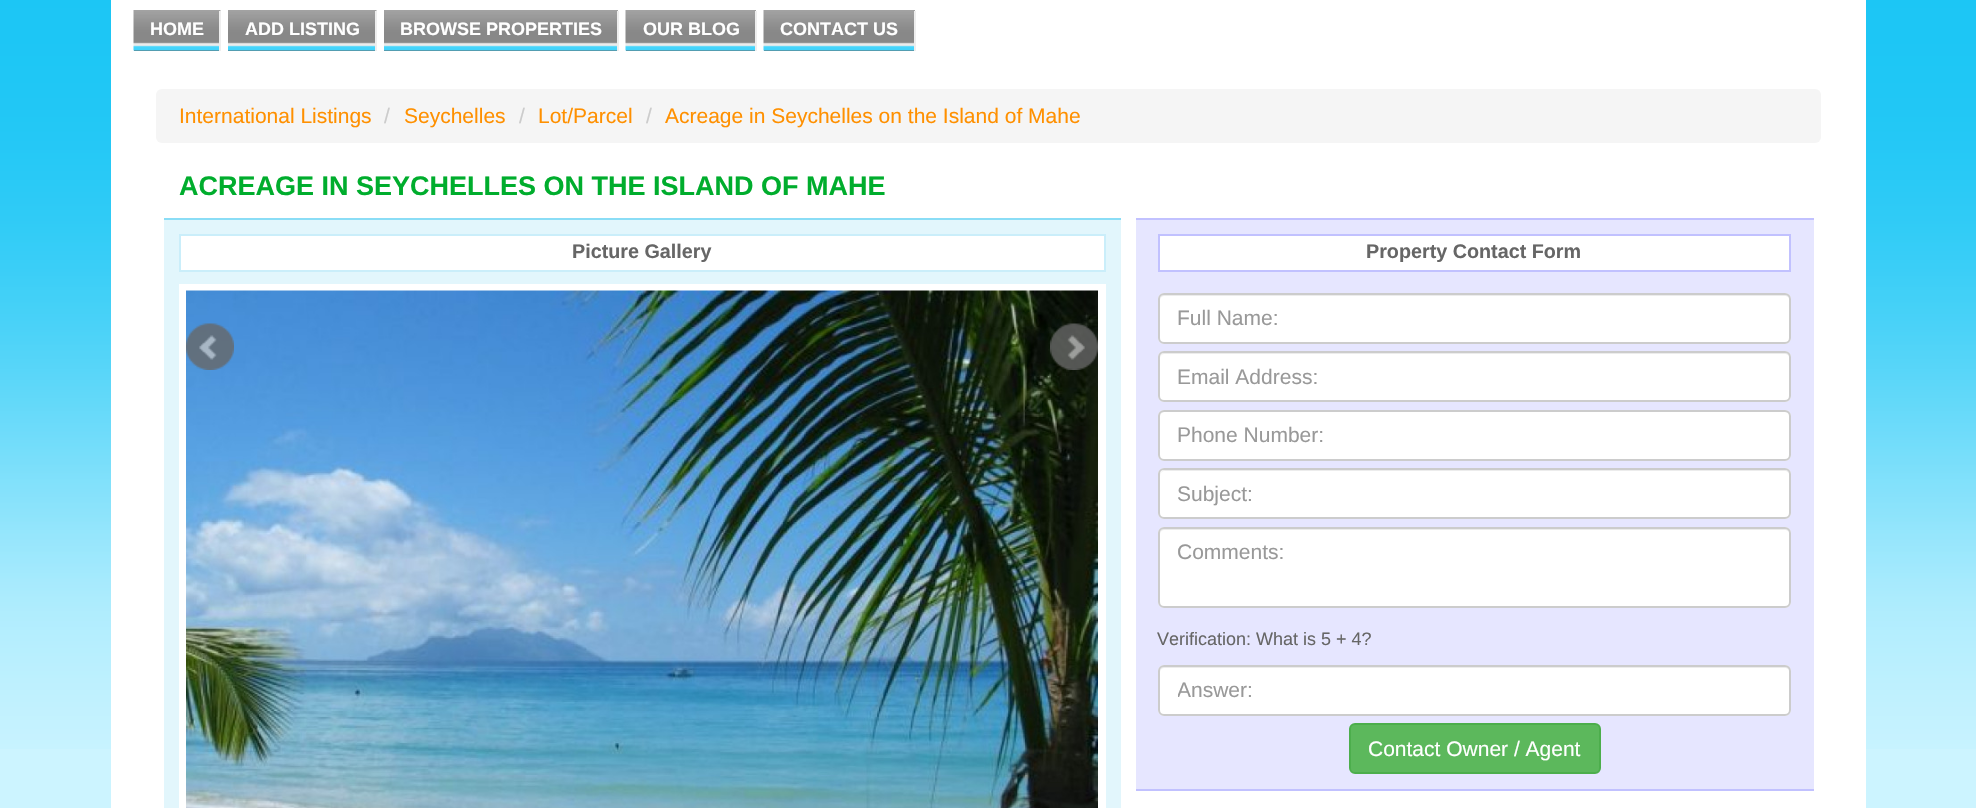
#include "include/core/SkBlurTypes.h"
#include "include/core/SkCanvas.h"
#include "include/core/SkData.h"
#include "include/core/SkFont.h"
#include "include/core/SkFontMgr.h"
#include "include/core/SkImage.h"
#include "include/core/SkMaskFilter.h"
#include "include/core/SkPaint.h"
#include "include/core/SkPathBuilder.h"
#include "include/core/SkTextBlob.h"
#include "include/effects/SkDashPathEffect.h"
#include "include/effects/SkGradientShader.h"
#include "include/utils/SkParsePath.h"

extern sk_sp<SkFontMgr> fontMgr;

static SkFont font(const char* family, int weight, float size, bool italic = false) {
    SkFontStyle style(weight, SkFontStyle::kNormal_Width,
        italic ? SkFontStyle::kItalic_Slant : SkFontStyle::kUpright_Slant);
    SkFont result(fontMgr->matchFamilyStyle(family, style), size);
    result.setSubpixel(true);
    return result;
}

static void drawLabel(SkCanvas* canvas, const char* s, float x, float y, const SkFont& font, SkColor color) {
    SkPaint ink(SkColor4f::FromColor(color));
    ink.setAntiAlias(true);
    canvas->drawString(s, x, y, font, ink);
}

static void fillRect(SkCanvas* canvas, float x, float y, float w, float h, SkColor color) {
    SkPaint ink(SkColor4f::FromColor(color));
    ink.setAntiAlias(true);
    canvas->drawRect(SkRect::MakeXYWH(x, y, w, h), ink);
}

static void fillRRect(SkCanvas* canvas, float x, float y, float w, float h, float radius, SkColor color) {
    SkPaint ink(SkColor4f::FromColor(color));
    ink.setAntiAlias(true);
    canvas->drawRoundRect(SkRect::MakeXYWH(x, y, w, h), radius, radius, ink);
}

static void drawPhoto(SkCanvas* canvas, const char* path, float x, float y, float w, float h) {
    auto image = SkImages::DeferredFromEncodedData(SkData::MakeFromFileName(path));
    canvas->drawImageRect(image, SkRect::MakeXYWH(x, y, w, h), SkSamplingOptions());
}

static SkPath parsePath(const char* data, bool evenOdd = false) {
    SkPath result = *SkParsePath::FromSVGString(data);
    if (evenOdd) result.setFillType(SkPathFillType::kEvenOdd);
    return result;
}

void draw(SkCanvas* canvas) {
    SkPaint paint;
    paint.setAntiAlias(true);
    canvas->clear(0xFFCCF4FF);
    drawPhoto(canvas, "assets/img1.png", 0, 0, 1976, 749);
    fillRect(canvas, 111, 0, 1755, 808, 0xFFFFFFFF);
    fillRect(canvas, 134, 50, 85, 1, 0xFF666666);
    drawPhoto(canvas, "assets/img2.png", 133, 10, 88, 41);
    fillRect(canvas, 219, 11, 2, 40, 0xFFEEEEEE);
    SkFont font1 = font("Liberation Sans", 700, 18);
    drawLabel(canvas, "HOME", 150, 35, font1, 0xFFFFFFFF);
    fillRect(canvas, 228, 50, 147, 1, 0xFF666666);
    drawPhoto(canvas, "assets/img3.png", 228, 10, 149, 41);
    fillRect(canvas, 375, 11, 2, 40, 0xFFEEEEEE);
    drawLabel(canvas, "ADD LISTING", 245, 35, font1, 0xFFFFFFFF);
    fillRect(canvas, 384, 50, 233, 1, 0xFF666666);
    drawPhoto(canvas, "assets/img4.png", 384, 10, 234, 41);
    fillRect(canvas, 617, 11, 2, 40, 0xFFEEEEEE);
    drawLabel(canvas, "BROWSE PROPERTIES", 400, 35, font1, 0xFFFFFFFF);
    fillRect(canvas, 626, 50, 129, 1, 0xFF666666);
    drawPhoto(canvas, "assets/img5.png", 625, 10, 131, 41);
    fillRect(canvas, 755, 11, 2, 40, 0xFFEEEEEE);
    drawLabel(canvas, "OUR BLOG", 643, 35, font1, 0xFFFFFFFF);
    fillRect(canvas, 764, 50, 150, 1, 0xFF666666);
    drawPhoto(canvas, "assets/img6.png", 763, 10, 152, 41);
    fillRect(canvas, 914, 11, 2, 40, 0xFFEEEEEE);
    drawLabel(canvas, "CONTACT US", 780, 35, font1, 0xFFFFFFFF);
    fillRRect(canvas, 156, 89, 1665, 54, 6, 0xFFF5F5F5);
    SkFont font2 = font("Liberation Sans", 400, 21);
    drawLabel(canvas, "International Listings", 179, 123, font2, 0xFFFF9000);
    drawLabel(canvas, "/", 384, 123, font2, 0xFFCCCCCC);
    drawLabel(canvas, "Seychelles", 404, 123, font2, 0xFFFF9000);
    drawLabel(canvas, "/", 519, 123, font2, 0xFFCCCCCC);
    drawLabel(canvas, "Lot/Parcel", 538, 123, font2, 0xFFFF9000);
    drawLabel(canvas, "/", 646, 123, font2, 0xFFCCCCCC);
    drawLabel(canvas, "Acreage in Seychelles on the Island of Mahe", 665, 123, font2, 0xFFFF9000);
    SkFont font3 = font("Liberation Sans", 700, 27);
    drawLabel(canvas, "ACREAGE IN SEYCHELLES ON THE ISLAND OF MAHE", 179, 195, font3, 0xFF00AD2D);
    fillRect(canvas, 164, 220, 957, 588, 0xFFE2F6FC);
    fillRect(canvas, 164, 218, 957, 2, 0xFF8ADDF6);
    paint.setColor(0xFFFFFFFF);
    canvas->drawRect(SkRect::MakeXYWH(180, 235, 925, 36), paint);
    paint.setStroke(true);
    paint.setStrokeWidth(2);
    paint.setColor(0xFFCAEEFA);
    canvas->drawRect(SkRect::MakeXYWH(180, 235, 925, 36), paint);
    SkFont font4 = font("Liberation Sans", 700, 19.75f);
    drawLabel(canvas, "Picture Gallery", 572, 258, font4, 0xFF666666);
    fillRect(canvas, 179, 284, 927, 524, 0xFFFFFFFF);
    drawPhoto(canvas, "assets/img7.png", 186, 290, 912, 518);
    drawPhoto(canvas, "assets/img8.png", 186, 323, 48, 47);
    drawPhoto(canvas, "assets/img9.png", 1050, 323, 48, 47);
    fillRect(canvas, 1136, 220, 678, 569, 0xFFE6E6FF);
    fillRect(canvas, 1136, 218, 678, 2, 0xFFC1C1FF);
    fillRect(canvas, 1136, 789, 678, 2, 0xFFC1C1FF);
    paint.setStroke(false);
    paint.setColor(0xFFFFFFFF);
    canvas->drawRect(SkRect::MakeXYWH(1159, 235, 631, 36), paint);
    paint.setStroke(true);
    paint.setColor(0xFFC1C1FF);
    canvas->drawRect(SkRect::MakeXYWH(1159, 235, 631, 36), paint);
    drawLabel(canvas, "Property Contact Form", 1366, 258, font4, 0xFF666666);
    fillRRect(canvas, 1158, 293, 633, 51, 6, 0xFFFFFFFF);
    paint.setStroke(false);
    paint.setColor(0xFFECECEC);
    canvas->drawPath(parsePath("M1164 296H1785C1787 296 1790 298 1790 300C1790 297 1788 294 1785 294H1165C1162 294 1160 297 1160 300C1160 298 1162 296 1164 296Z"), paint);
    paint.setStroke(true);
    paint.setColor(0xFFCCCCCC);
    canvas->drawRoundRect(SkRect::MakeXYWH(1159, 294, 631, 49), 5, 5, paint);
    drawLabel(canvas, "Full Name:", 1177, 325, font2, 0xFF999999);
    fillRRect(canvas, 1158, 351, 633, 51, 6, 0xFFFFFFFF);
    paint.setStroke(false);
    paint.setColor(0xFFECECEC);
    canvas->drawPath(parsePath("M1164 354H1785C1787 354 1790 356 1790 358C1790 355 1788 353 1785 353H1165C1162 353 1160 355 1160 358C1160 356 1162 354 1164 354Z"), paint);
    paint.setStroke(true);
    paint.setColor(0xFFCCCCCC);
    canvas->drawRoundRect(SkRect::MakeXYWH(1159, 352, 631, 49), 5, 5, paint);
    drawLabel(canvas, "Email Address:", 1177, 384, font2, 0xFF999999);
    fillRRect(canvas, 1158, 410, 633, 51, 6, 0xFFFFFFFF);
    paint.setStroke(false);
    paint.setColor(0xFFECECEC);
    canvas->drawPath(parsePath("M1164 412H1785C1787 412 1790 415 1790 417C1790 414 1788 411 1785 411H1165C1162 411 1160 414 1160 417C1160 415 1162 412 1164 412Z"), paint);
    paint.setStroke(true);
    paint.setColor(0xFFCCCCCC);
    canvas->drawRoundRect(SkRect::MakeXYWH(1159, 411, 631, 49), 5, 5, paint);
    drawLabel(canvas, "Phone Number:", 1177, 442, font2, 0xFF999999);
    fillRRect(canvas, 1158, 468, 633, 51, 6, 0xFFFFFFFF);
    paint.setStroke(false);
    paint.setColor(0xFFECECEC);
    canvas->drawPath(parsePath("M1164 471H1785C1787 471 1790 473 1790 476C1790 473 1788 470 1785 470H1165C1162 470 1160 473 1160 476C1160 473 1162 471 1164 471Z"), paint);
    paint.setStroke(true);
    paint.setColor(0xFFCCCCCC);
    canvas->drawRoundRect(SkRect::MakeXYWH(1159, 469, 631, 49), 5, 5, paint);
    drawLabel(canvas, "Subject:", 1177, 501, font2, 0xFF999999);
    fillRRect(canvas, 1158, 527, 633, 81, 6, 0xFFFFFFFF);
    paint.setStroke(false);
    paint.setColor(0xFFECECEC);
    canvas->drawPath(parsePath("M1164 530H1785C1787 530 1790 532 1790 534C1790 531 1788 528 1785 528H1165C1162 528 1160 531 1160 534C1160 532 1162 530 1164 530Z"), paint);
    paint.setStroke(true);
    paint.setColor(0xFFCCCCCC);
    canvas->drawRoundRect(SkRect::MakeXYWH(1159, 528, 631, 79), 5, 5, paint);
    drawLabel(canvas, "Comments:", 1177, 559, font2, 0xFF999999);
    SkFont font5 = font("Liberation Sans", 400, 18);
    drawLabel(canvas, "Verification: What is 5 + 4?", 1157, 645, font5, 0xFF666666);
    fillRRect(canvas, 1158, 665, 633, 51, 6, 0xFFFFFFFF);
    paint.setStroke(false);
    paint.setColor(0xFFECECEC);
    canvas->drawPath(parsePath("M1164 668H1785C1787 668 1790 670 1790 672C1790 669 1788 666 1785 666H1165C1162 666 1160 669 1160 672C1160 670 1162 668 1164 668Z"), paint);
    paint.setStroke(true);
    paint.setColor(0xFFCCCCCC);
    canvas->drawRoundRect(SkRect::MakeXYWH(1159, 666, 631, 49), 5, 5, paint);
    canvas->save();
    canvas->clipRect(SkRect::MakeXYWH(1178, 678, 594, 24));
    drawLabel(canvas, "Answer:", 1177, 697, font2, 0xFF999999);
    canvas->restore();
    paint.setStroke(false);
    paint.setColor(0xFF5CB85C);
    canvas->drawRoundRect(SkRect::MakeXYWH(1350, 724, 250, 49), 5, 5, paint);
    paint.setStroke(true);
    paint.setColor(0xFF4CAE4C);
    canvas->drawRoundRect(SkRect::MakeXYWH(1350, 724, 250, 49), 5, 5, paint);
    drawLabel(canvas, "Contact Owner / Agent", 1368, 756, font2, 0xFFFFFFFF);
}
